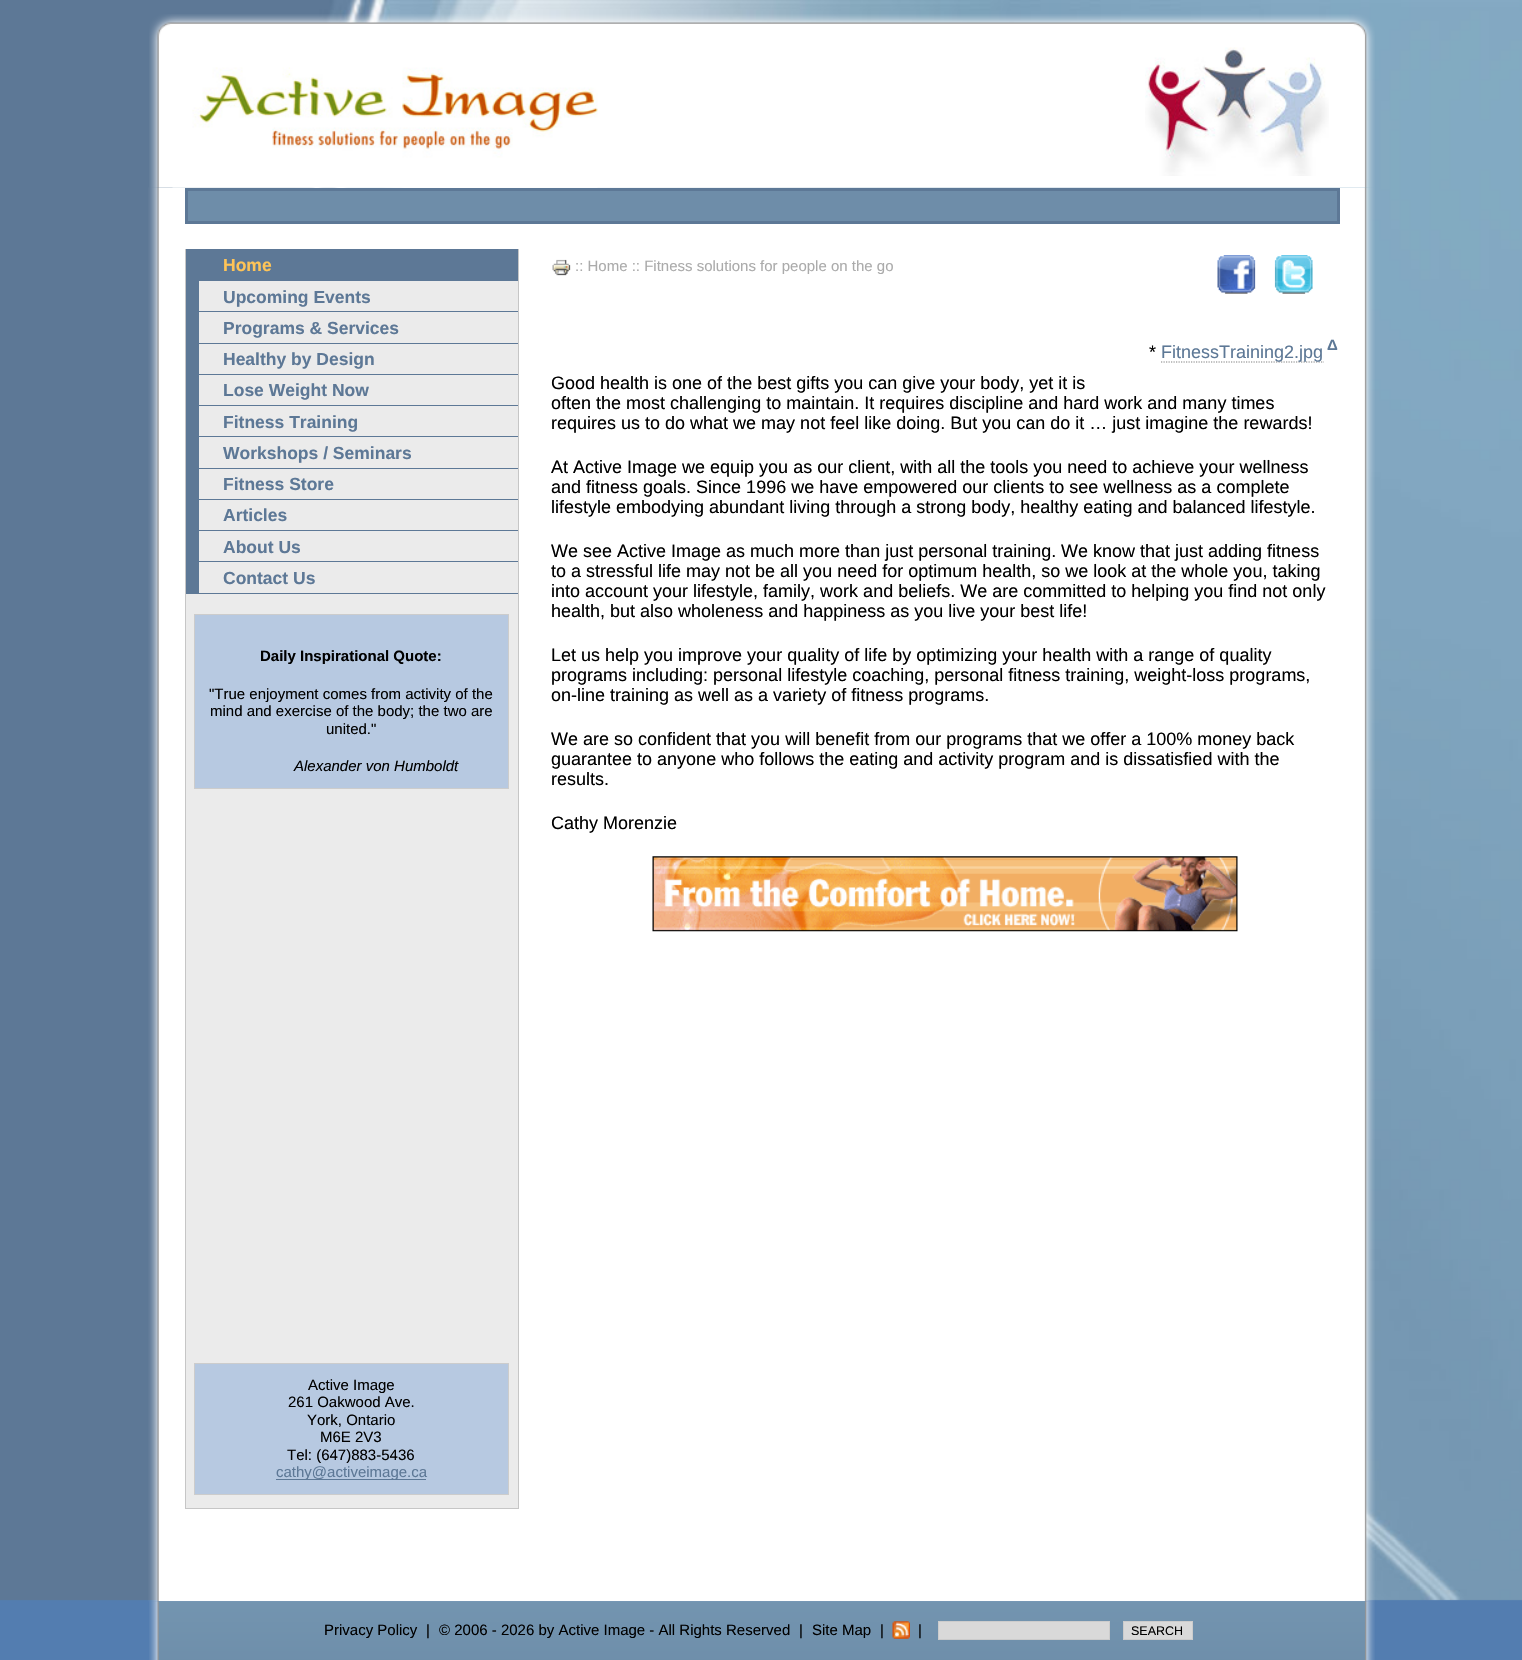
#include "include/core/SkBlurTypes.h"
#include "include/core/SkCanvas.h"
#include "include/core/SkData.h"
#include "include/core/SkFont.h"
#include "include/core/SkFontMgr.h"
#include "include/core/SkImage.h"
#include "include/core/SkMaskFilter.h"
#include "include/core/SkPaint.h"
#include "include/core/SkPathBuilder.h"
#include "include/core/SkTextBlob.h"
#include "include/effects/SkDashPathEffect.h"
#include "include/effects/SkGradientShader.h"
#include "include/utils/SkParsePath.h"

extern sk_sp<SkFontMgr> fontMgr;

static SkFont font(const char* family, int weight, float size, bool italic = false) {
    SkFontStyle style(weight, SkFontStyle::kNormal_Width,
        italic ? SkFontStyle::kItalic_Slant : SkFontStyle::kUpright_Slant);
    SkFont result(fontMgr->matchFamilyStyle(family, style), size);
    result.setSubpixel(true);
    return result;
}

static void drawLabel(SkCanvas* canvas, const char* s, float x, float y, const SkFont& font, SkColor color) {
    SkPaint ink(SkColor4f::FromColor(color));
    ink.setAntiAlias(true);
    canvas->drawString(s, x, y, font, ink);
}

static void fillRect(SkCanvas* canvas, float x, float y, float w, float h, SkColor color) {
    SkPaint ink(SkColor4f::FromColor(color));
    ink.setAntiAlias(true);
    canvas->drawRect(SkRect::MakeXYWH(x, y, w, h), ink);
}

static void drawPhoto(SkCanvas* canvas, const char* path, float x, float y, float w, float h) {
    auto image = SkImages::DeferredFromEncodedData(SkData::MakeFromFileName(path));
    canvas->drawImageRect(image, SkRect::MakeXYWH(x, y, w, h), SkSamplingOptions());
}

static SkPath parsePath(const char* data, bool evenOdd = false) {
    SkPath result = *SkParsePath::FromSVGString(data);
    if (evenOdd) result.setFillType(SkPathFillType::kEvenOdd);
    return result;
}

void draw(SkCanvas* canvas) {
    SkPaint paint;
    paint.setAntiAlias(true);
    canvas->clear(0xFF537DB0);
    drawPhoto(canvas, "assets/img1.png", 0, 0, 1522, 1601);
    drawPhoto(canvas, "assets/img5.png", 148, 187, 1227, 1415);
    drawPhoto(canvas, "assets/img2.png", 149, 14, 1226, 174);
    drawPhoto(canvas, "assets/img3.png", 172, 67, 426, 121);
    drawPhoto(canvas, "assets/img4.png", 1145, 47, 184, 129);
    paint.setColor(0xFF6E8DA9);
    canvas->drawRect(SkRect::MakeXYWH(186.5f, 189.5f, 1152, 33), paint);
    paint.setStroke(true);
    paint.setStrokeWidth(3);
    paint.setColor(0xFF5D7896);
    canvas->drawRect(SkRect::MakeXYWH(186.5f, 189.5f, 1152, 33), paint);
    fillRect(canvas, 186, 281, 332, 1227, 0xFFEBEBEB);
    fillRect(canvas, 185, 249, 334, 1, 0xFF5D7896);
    fillRect(canvas, 518, 249, 1, 1260, 0xFFC6C6C6);
    fillRect(canvas, 185, 1508, 334, 1, 0xFFC6C6C6);
    fillRect(canvas, 185, 249, 1, 1260, 0xFFC6C6C6);
    fillRect(canvas, 186, 250, 332, 31, 0xFF5D7896);
    SkFont font1 = font("Liberation Sans", 700, 17.5f);
    drawLabel(canvas, "Home", 223, 271, font1, 0xFFFFC457);
    fillRect(canvas, 199, 311, 319, 1, 0xFF5D7896);
    fillRect(canvas, 186, 281, 13, 313, 0xFF5D7896);
    drawLabel(canvas, "Upcoming Events", 223, 303, font1, 0xFF5D7896);
    fillRect(canvas, 199, 343, 319, 1, 0xFF5D7896);
    drawLabel(canvas, "Programs & Services", 223, 334, font1, 0xFF5D7896);
    fillRect(canvas, 199, 374, 319, 1, 0xFF5D7896);
    drawLabel(canvas, "Healthy by Design", 223, 365, font1, 0xFF5D7896);
    fillRect(canvas, 199, 405, 319, 1, 0xFF5D7896);
    drawLabel(canvas, "Lose Weight Now", 223, 396, font1, 0xFF5D7896);
    fillRect(canvas, 199, 436, 319, 1, 0xFF5D7896);
    drawLabel(canvas, "Fitness Training", 223, 428, font1, 0xFF5D7896);
    fillRect(canvas, 199, 468, 319, 1, 0xFF5D7896);
    drawLabel(canvas, "Workshops / Seminars", 223, 459, font1, 0xFF5D7896);
    fillRect(canvas, 199, 499, 319, 1, 0xFF5D7896);
    drawLabel(canvas, "Fitness Store", 223, 490, font1, 0xFF5D7896);
    fillRect(canvas, 199, 530, 319, 1, 0xFF5D7896);
    drawLabel(canvas, "Articles", 223, 521, font1, 0xFF5D7896);
    fillRect(canvas, 199, 561, 319, 1, 0xFF5D7896);
    drawLabel(canvas, "About Us", 223, 553, font1, 0xFF5D7896);
    fillRect(canvas, 199, 593, 319, 1, 0xFF5D7896);
    drawLabel(canvas, "Contact Us", 223, 584, font1, 0xFF5D7896);
    paint.setStroke(false);
    paint.setColor(0xFFB7C9E1);
    canvas->drawRect(SkRect::MakeXYWH(194.5f, 614.5f, 314, 174), paint);
    paint.setStroke(true);
    paint.setStrokeWidth(1);
    paint.setColor(0xFFCCCCCC);
    canvas->drawRect(SkRect::MakeXYWH(194.5f, 614.5f, 314, 174), paint);
    SkFont font2 = font("Liberation Sans", 700, 15);
    drawLabel(canvas, "Daily Inspirational Quote:", 260, 661, font2, 0xFF000000);
    SkFont font3 = font("Liberation Sans", 400, 15);
    drawLabel(canvas, "\"True enjoyment comes from activity of the", 209, 699, font3, 0xFF000000);
    drawLabel(canvas, "mind and exercise of the body; the two are", 210, 716, font3, 0xFF000000);
    drawLabel(canvas, "united.\"", 326, 734, font3, 0xFF000000);
    SkFont font4 = font("Liberation Sans", 400, 15, true);
    drawLabel(canvas, "Alexander von Humboldt", 294, 771, font4, 0xFF000000);
    paint.setStroke(false);
    paint.setColor(0xFFB7C9E1);
    canvas->drawRect(SkRect::MakeXYWH(194.5f, 1363.5f, 314, 131), paint);
    paint.setStroke(true);
    paint.setColor(0xFFCCCCCC);
    canvas->drawRect(SkRect::MakeXYWH(194.5f, 1363.5f, 314, 131), paint);
    drawLabel(canvas, "Active Image", 308, 1390, font3, 0xFF000000);
    drawLabel(canvas, "261 Oakwood Ave.", 288, 1407, font3, 0xFF000000);
    drawLabel(canvas, "York, Ontario", 307, 1425, font3, 0xFF000000);
    drawLabel(canvas, "M6E 2V3", 320, 1442, font3, 0xFF000000);
    drawLabel(canvas, "Tel: (647)883-5436", 287, 1460, font3, 0xFF000000);
    fillRect(canvas, 276, 1479, 150, 1, 0xFF5D7896);
    drawLabel(canvas, "cathy@activeimage.ca", 276, 1477, font3, 0xFF5D7896);
    drawPhoto(canvas, "assets/img6.png", 552, 259, 19, 17);
    drawLabel(canvas, ":: Home :: Fitness solutions for people on the go", 575, 271, font3, 0xFFABABAB);
    drawPhoto(canvas, "assets/img7.png", 1217, 255, 39, 39);
    drawPhoto(canvas, "assets/img8.png", 1274, 255, 39, 39);
    SkFont font5 = font("Liberation Sans", 400, 18);
    drawLabel(canvas, "*", 1149, 358, font5, 0xFF000000);
    paint.setStrokeWidth(1.2f);
    paint.setColor(0xFF808080);
    paint.setPathEffect(SkDashPathEffect::Make({{1.25f, 1.25f}}, 0));
    canvas->drawPath(parsePath("M1161 362H1324"), paint);
    paint.setPathEffect(nullptr);
    drawLabel(canvas, "FitnessTraining2.jpg", 1161, 358, font5, 0xFF5D7896);
    drawLabel(canvas, "Δ", 1327, 350, font2, 0xFF5D7896);
    drawLabel(canvas, "Good health is one of the best gifts you can give your body, yet it is", 551, 389, font5, 0xFF000000);
    drawLabel(canvas, "often the most challenging to maintain. It requires discipline and hard work and many times", 551, 409, font5, 0xFF000000);
    drawLabel(canvas, "requires us to do what we may not feel like doing. But you can do it … just imagine the rewards!", 551, 429, font5, 0xFF000000);
    drawLabel(canvas, "At Active Image we equip you as our client, with all the tools you need to achieve your wellness", 551, 473, font5, 0xFF000000);
    drawLabel(canvas, "and fitness goals. Since 1996 we have empowered our clients to see wellness as a complete", 551, 493, font5, 0xFF000000);
    drawLabel(canvas, "lifestyle embodying abundant living through a strong body, healthy eating and balanced lifestyle.", 551, 513, font5, 0xFF000000);
    drawLabel(canvas, "We see Active Image as much more than just personal training.", 551, 557, font5, 0xFF000000);
    drawLabel(canvas, "We know that just adding fitness", 1061, 557, font5, 0xFF000000);
    drawLabel(canvas, "to a stressful life may not be all you need for optimum health, so we look at the whole you, taking", 551, 577, font5, 0xFF000000);
    drawLabel(canvas, "into account your lifestyle, family, work and beliefs. We are committed to helping you find not only", 551, 597, font5, 0xFF000000);
    drawLabel(canvas, "health, but also wholeness and happiness as you live your best life!", 551, 617, font5, 0xFF000000);
    drawLabel(canvas, "Let us help you improve your quality of life by optimizing your health with a range of quality", 551, 661, font5, 0xFF000000);
    drawLabel(canvas, "programs including: personal lifestyle coaching, personal fitness training, weight-loss programs,", 551, 681, font5, 0xFF000000);
    drawLabel(canvas, "on-line training as well as a variety of fitness programs.", 551, 701, font5, 0xFF000000);
    drawLabel(canvas, "We are so confident that you will benefit from our programs that we offer a 100% money back", 551, 745, font5, 0xFF000000);
    drawLabel(canvas, "guarantee to anyone who follows the eating and activity program and is dissatisfied with the", 551, 765, font5, 0xFF000000);
    drawLabel(canvas, "results.", 551, 785, font5, 0xFF000000);
    drawLabel(canvas, "Cathy Morenzie", 551, 829, font5, 0xFF000000);
    drawPhoto(canvas, "assets/img9.png", 652, 856, 586, 76);
    drawPhoto(canvas, "assets/img10.png", 149, 1601, 1226, 59);
    drawLabel(canvas, "Privacy Policy", 324, 1635, font3, 0xFF000000);
    drawLabel(canvas, "|", 426, 1635, font3, 0xFF000000);
    drawLabel(canvas, "© 2006 - 2026 by Active Image - All Rights Reserved", 439, 1635, font3, 0xFF000000);
    drawLabel(canvas, "|", 799, 1635, font3, 0xFF000000);
    drawLabel(canvas, "Site Map", 812, 1635, font3, 0xFF000000);
    drawLabel(canvas, "|", 880, 1635, font3, 0xFF000000);
    drawPhoto(canvas, "assets/img11.png", 892, 1621, 18, 18);
    drawLabel(canvas, "|", 918, 1635, font3, 0xFF000000);
    paint.setStroke(false);
    paint.setColor(0xFFD9D9D9);
    canvas->drawRect(SkRect::MakeXYWH(938.5f, 1621.5f, 171, 18), paint);
    paint.setStroke(true);
    paint.setStrokeWidth(1);
    paint.setColor(0xFFCCCCCC);
    canvas->drawRect(SkRect::MakeXYWH(938.5f, 1621.5f, 171, 18), paint);
    paint.setStroke(false);
    paint.setColor(0xFFD9D9D9);
    canvas->drawRect(SkRect::MakeXYWH(1123.5f, 1621.5f, 69, 18), paint);
    paint.setStroke(true);
    paint.setColor(0xFFCCCCCC);
    canvas->drawRect(SkRect::MakeXYWH(1123.5f, 1621.5f, 69, 18), paint);
    SkFont font6 = font("Liberation Sans", 400, 12.5f);
    drawLabel(canvas, "SEARCH", 1131, 1635, font6, 0xFF000000);
}
